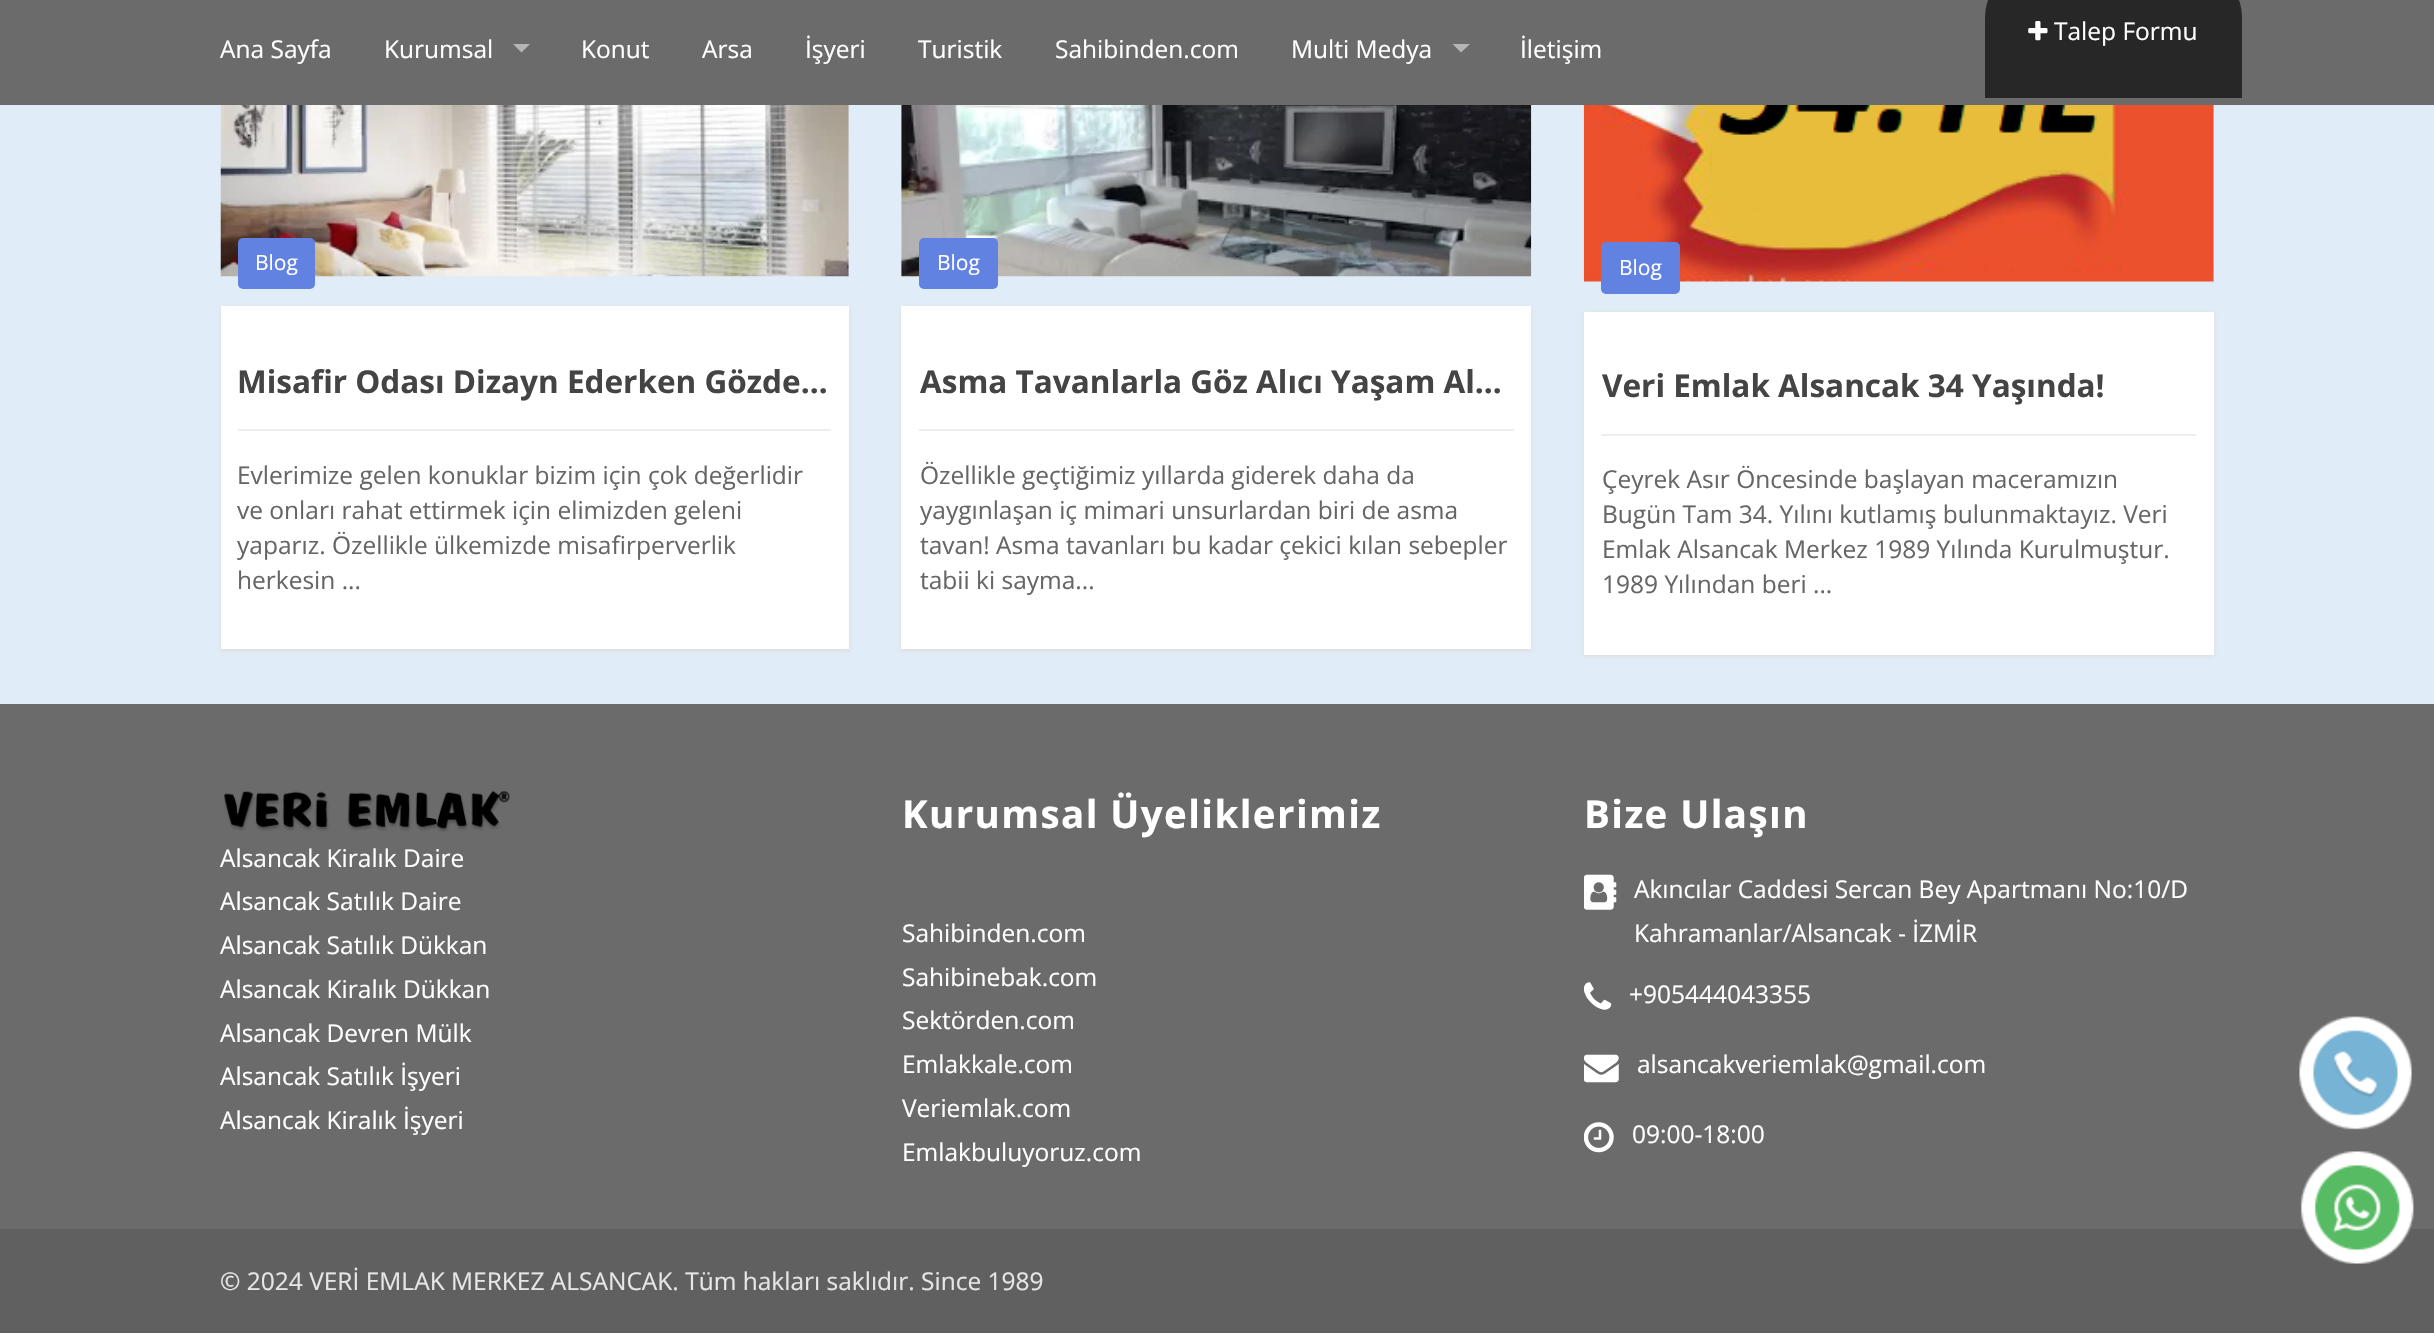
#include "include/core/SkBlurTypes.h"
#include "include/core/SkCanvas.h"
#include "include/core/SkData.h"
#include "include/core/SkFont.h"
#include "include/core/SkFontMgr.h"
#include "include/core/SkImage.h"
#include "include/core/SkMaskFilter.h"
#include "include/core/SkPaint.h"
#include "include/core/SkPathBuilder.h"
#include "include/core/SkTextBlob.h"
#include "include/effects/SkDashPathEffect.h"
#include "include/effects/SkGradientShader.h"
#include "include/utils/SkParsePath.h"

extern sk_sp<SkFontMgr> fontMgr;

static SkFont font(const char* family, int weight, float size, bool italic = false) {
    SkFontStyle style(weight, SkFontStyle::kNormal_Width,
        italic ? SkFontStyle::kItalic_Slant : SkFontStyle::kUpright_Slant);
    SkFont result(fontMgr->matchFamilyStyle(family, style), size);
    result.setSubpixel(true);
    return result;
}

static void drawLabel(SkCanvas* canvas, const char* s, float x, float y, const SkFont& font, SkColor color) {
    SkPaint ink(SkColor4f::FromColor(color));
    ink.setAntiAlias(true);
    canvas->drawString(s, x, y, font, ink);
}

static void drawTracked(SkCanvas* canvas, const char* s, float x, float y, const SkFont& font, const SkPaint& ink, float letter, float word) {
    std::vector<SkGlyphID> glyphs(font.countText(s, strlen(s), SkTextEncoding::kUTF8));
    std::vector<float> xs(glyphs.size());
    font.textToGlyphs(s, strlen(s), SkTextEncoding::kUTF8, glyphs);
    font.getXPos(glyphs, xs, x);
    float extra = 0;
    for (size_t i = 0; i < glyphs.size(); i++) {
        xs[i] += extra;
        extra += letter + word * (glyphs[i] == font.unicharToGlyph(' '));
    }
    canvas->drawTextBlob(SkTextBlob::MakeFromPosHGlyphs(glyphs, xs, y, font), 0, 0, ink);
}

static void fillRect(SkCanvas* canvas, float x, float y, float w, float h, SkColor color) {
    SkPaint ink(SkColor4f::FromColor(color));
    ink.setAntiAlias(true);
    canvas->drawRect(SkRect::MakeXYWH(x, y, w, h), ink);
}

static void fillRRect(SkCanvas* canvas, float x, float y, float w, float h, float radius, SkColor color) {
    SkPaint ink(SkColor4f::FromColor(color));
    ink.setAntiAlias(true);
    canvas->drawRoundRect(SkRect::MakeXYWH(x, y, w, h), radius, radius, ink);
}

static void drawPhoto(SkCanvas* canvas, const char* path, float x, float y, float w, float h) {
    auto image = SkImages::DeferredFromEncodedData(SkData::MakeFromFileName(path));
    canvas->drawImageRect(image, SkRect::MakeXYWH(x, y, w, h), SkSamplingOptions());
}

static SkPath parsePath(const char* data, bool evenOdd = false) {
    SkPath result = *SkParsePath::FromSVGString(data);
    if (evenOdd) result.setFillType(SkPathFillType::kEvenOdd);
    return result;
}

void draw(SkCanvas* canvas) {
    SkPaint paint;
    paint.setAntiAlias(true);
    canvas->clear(0xFFE0ECF7);
    fillRect(canvas, 0, 0, 2434, 105, 0xFF6B6B6B);
    SkFont font1 = font("Open Sans", 400, 24.5f);
    drawLabel(canvas, "Ana Sayfa", 220, 58, font1, 0xFFFFFFFF);
    drawLabel(canvas, "Kurumsal", 384, 58, font1, 0xFFFFFFFF);
    paint.setColor(0xFFB5B5B5);
    canvas->drawPath(parsePath("M513 44H530L521.5 52.5Z"), paint);
    drawLabel(canvas, "Konut", 581, 58, font1, 0xFFFFFFFF);
    drawLabel(canvas, "Arsa", 702, 58, font1, 0xFFFFFFFF);
    drawLabel(canvas, "İşyeri", 805, 58, font1, 0xFFFFFFFF);
    drawLabel(canvas, "Turistik", 918, 58, font1, 0xFFFFFFFF);
    drawLabel(canvas, "Sahibinden.com", 1055, 58, font1, 0xFFFFFFFF);
    drawLabel(canvas, "Multi Medya", 1291, 58, font1, 0xFFFFFFFF);
    canvas->drawPath(parsePath("M1452.5 44H1470L1461 52.5Z"), paint);
    drawLabel(canvas, "İletişim", 1520, 58, font1, 0xFFFFFFFF);
    paint.setColor(0xFF272727);
    canvas->drawPath(parsePath("M2038-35H2189C2218.5-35 2242-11.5 2242 18V98H1985V18C1985-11.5 2008.5-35 2038-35Z"), paint);
    drawPhoto(canvas, "assets/img1.png", 2028, 21, 20, 20);
    drawLabel(canvas, "Talep Formu", 2054, 40, font1, 0xFFFFFFFF);
    drawPhoto(canvas, "assets/img2.png", 220, 105, 629, 172);
    fillRRect(canvas, 238, 238, 77, 51, 5, 0xFF6282E2);
    SkFont font2 = font("Open Sans", 400, 21);
    drawLabel(canvas, "Blog", 255, 270, font2, 0xFFFFFFFF);
    paint.setColor(0xFFDDDDDD);
    paint.setMaskFilter(SkMaskFilter::MakeBlur(kNormal_SkBlurStyle, 2));
    canvas->drawRect(SkRect::MakeXYWH(221, 308, 628, 343), paint);
    paint.setMaskFilter(nullptr);
    fillRect(canvas, 221, 306, 628, 343, 0xFFFFFFFF);
    SkFont font3 = font("Open Sans", 700, 31.5f);
    drawLabel(canvas, "Misafir Odası Dizayn Ederken Gözde…", 237, 393, font3, 0xFF444444);
    fillRect(canvas, 238, 429, 593, 2, 0xFFEEEEEE);
    drawLabel(canvas, "Evlerimize gelen konuklar bizim için çok değerlidir", 237, 484, font1, 0xFF666666);
    drawLabel(canvas, "ve onları rahat ettirmek için elimizden geleni", 237, 519, font1, 0xFF666666);
    drawLabel(canvas, "yaparız. Özellikle ülkemizde misafirperverlik", 237, 554, font1, 0xFF666666);
    drawLabel(canvas, "herkesin ...", 237, 589, font1, 0xFF666666);
    drawPhoto(canvas, "assets/img3.png", 901, 105, 631, 172);
    fillRRect(canvas, 919, 238, 79, 51, 5, 0xFF6282E2);
    drawLabel(canvas, "Blog", 937, 270, font2, 0xFFFFFFFF);
    paint.setMaskFilter(SkMaskFilter::MakeBlur(kNormal_SkBlurStyle, 2));
    canvas->drawRect(SkRect::MakeXYWH(901, 308, 630, 343), paint);
    paint.setMaskFilter(nullptr);
    fillRect(canvas, 901, 306, 630, 343, 0xFFFFFFFF);
    drawLabel(canvas, "Asma Tavanlarla Göz Alıcı Yaşam Al…", 920, 393, font3, 0xFF444444);
    fillRect(canvas, 919, 429, 595, 2, 0xFFEEEEEE);
    drawLabel(canvas, "Özellikle geçtiğimiz yıllarda giderek daha da", 920, 484, font1, 0xFF666666);
    drawLabel(canvas, "yaygınlaşan iç mimari unsurlardan biri de asma", 920, 519, font1, 0xFF666666);
    drawLabel(canvas, "tavan! Asma tavanları bu kadar çekici kılan sebepler", 920, 554, font1, 0xFF666666);
    drawLabel(canvas, "tabii ki sayma...", 920, 589, font1, 0xFF666666);
    drawPhoto(canvas, "assets/img4.png", 1583, 105, 631, 177);
    fillRRect(canvas, 1601, 242, 79, 52, 5, 0xFF6282E2);
    drawLabel(canvas, "Blog", 1619, 275, font2, 0xFFFFFFFF);
    paint.setMaskFilter(SkMaskFilter::MakeBlur(kNormal_SkBlurStyle, 2));
    canvas->drawRect(SkRect::MakeXYWH(1584, 313, 630, 343), paint);
    paint.setMaskFilter(nullptr);
    fillRect(canvas, 1584, 312, 630, 343, 0xFFFFFFFF);
    drawLabel(canvas, "Veri Emlak Alsancak 34 Yaşında!", 1602, 397, font3, 0xFF444444);
    fillRect(canvas, 1601, 434, 595, 2, 0xFFEEEEEE);
    drawLabel(canvas, "Çeyrek Asır Öncesinde başlayan maceramızın", 1602, 488, font1, 0xFF666666);
    drawLabel(canvas, "Bugün Tam 34. Yılını kutlamış bulunmaktayız. Veri", 1602, 523, font1, 0xFF666666);
    drawLabel(canvas, "Emlak Alsancak Merkez 1989 Yılında Kurulmuştur.", 1602, 558, font1, 0xFF666666);
    drawLabel(canvas, "1989 Yılından beri ...", 1602, 593, font1, 0xFF666666);
    fillRect(canvas, 0, 704, 2434, 525, 0xFF6B6B6B);
    drawPhoto(canvas, "assets/img5.png", 224, 790, 286, 42);
    drawLabel(canvas, "Alsancak Kiralık Daire", 220, 867, font1, 0xFFFFFFFF);
    drawLabel(canvas, "Alsancak Satılık Daire", 220, 910, font1, 0xFFFFFFFF);
    drawLabel(canvas, "Alsancak Satılık Dükkan", 220, 954, font1, 0xFFFFFFFF);
    drawLabel(canvas, "Alsancak Kiralık Dükkan", 220, 998, font1, 0xFFFFFFFF);
    drawLabel(canvas, "Alsancak Devren Mülk", 220, 1042, font1, 0xFFFFFFFF);
    drawLabel(canvas, "Alsancak Satılık İşyeri", 220, 1085, font1, 0xFFFFFFFF);
    drawLabel(canvas, "Alsancak Kiralık İşyeri", 220, 1129, font1, 0xFFFFFFFF);
    SkFont font4 = font("Open Sans", 700, 38.5f);
    paint.setColor(0xFFFFFFFF);
    drawTracked(canvas, "Kurumsal Üyeliklerimiz", 902, 828, font4, paint, 1.4f, 0);
    drawLabel(canvas, "Sahibinden.com", 902, 942, font1, 0xFFFFFFFF);
    drawLabel(canvas, "Sahibinebak.com", 902, 986, font1, 0xFFFFFFFF);
    drawLabel(canvas, "Sektörden.com", 902, 1029, font1, 0xFFFFFFFF);
    drawLabel(canvas, "Emlakkale.com", 902, 1073, font1, 0xFFFFFFFF);
    drawLabel(canvas, "Veriemlak.com", 902, 1117, font1, 0xFFFFFFFF);
    drawLabel(canvas, "Emlakbuluyoruz.com", 902, 1161, font1, 0xFFFFFFFF);
    drawTracked(canvas, "Bize Ulaşın", 1584, 828, font4, paint, 1.4f, 0);
    drawPhoto(canvas, "assets/img6.png", 1584, 874, 33, 36);
    drawLabel(canvas, "Akıncılar Caddesi Sercan Bey Apartmanı No:10/D", 1634, 898, font1, 0xFFFFFFFF);
    drawLabel(canvas, "Kahramanlar/Alsancak - İZMİR", 1634, 942, font1, 0xFFFFFFFF);
    drawPhoto(canvas, "assets/img7.png", 1584, 982, 28, 28);
    drawLabel(canvas, "+905444043355", 1629, 1003, font1, 0xFFFFFFFF);
    drawPhoto(canvas, "assets/img8.png", 1584, 1054, 35, 29);
    drawLabel(canvas, "alsancakveriemlak@gmail.com", 1637, 1073, font1, 0xFFFFFFFF);
    drawPhoto(canvas, "assets/img9.png", 1584, 1122, 30, 31);
    drawLabel(canvas, "09:00-18:00", 1632, 1143, font1, 0xFFFFFFFF);
    drawPhoto(canvas, "assets/img10.png", 2299, 1016, 113, 114);
    fillRect(canvas, 0, 1229, 2434, 104, 0xFF606060);
    drawPhoto(canvas, "assets/img11.png", 2300, 1151, 114, 113);
    drawLabel(canvas, "© 2024 VERİ EMLAK MERKEZ ALSANCAK. Tüm hakları saklıdır. Since 1989", 220, 1290, font1, 0xFFE6E6E6);
}
